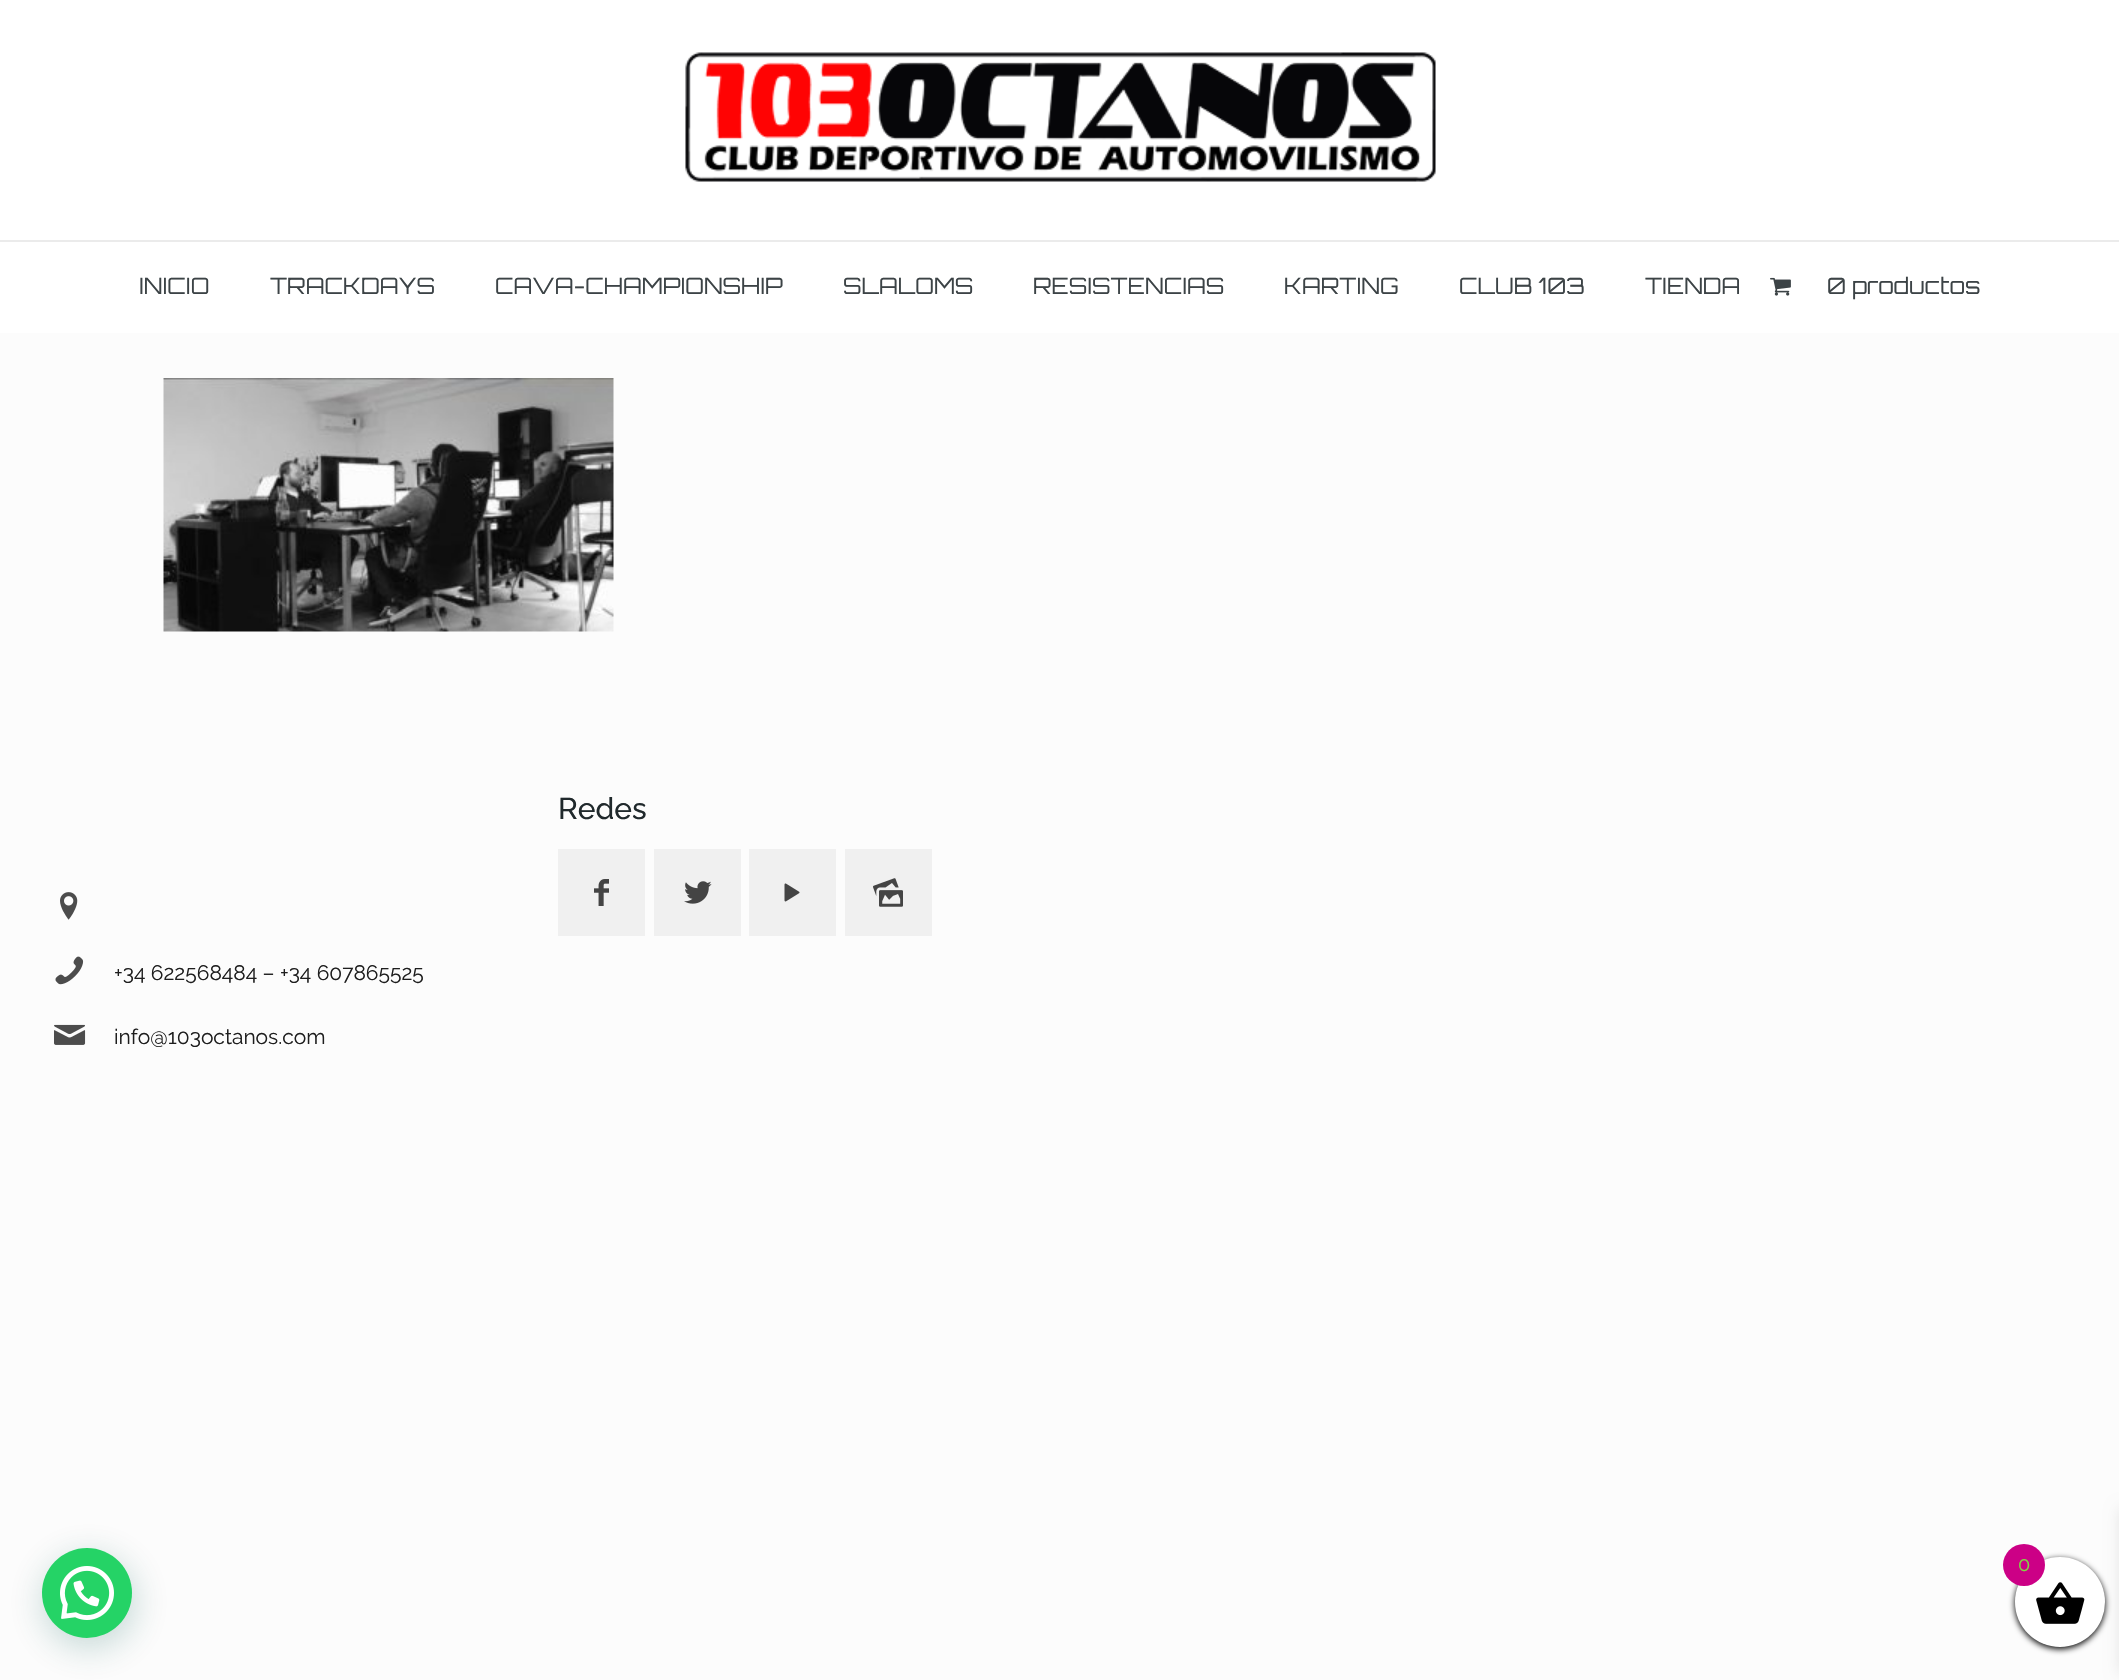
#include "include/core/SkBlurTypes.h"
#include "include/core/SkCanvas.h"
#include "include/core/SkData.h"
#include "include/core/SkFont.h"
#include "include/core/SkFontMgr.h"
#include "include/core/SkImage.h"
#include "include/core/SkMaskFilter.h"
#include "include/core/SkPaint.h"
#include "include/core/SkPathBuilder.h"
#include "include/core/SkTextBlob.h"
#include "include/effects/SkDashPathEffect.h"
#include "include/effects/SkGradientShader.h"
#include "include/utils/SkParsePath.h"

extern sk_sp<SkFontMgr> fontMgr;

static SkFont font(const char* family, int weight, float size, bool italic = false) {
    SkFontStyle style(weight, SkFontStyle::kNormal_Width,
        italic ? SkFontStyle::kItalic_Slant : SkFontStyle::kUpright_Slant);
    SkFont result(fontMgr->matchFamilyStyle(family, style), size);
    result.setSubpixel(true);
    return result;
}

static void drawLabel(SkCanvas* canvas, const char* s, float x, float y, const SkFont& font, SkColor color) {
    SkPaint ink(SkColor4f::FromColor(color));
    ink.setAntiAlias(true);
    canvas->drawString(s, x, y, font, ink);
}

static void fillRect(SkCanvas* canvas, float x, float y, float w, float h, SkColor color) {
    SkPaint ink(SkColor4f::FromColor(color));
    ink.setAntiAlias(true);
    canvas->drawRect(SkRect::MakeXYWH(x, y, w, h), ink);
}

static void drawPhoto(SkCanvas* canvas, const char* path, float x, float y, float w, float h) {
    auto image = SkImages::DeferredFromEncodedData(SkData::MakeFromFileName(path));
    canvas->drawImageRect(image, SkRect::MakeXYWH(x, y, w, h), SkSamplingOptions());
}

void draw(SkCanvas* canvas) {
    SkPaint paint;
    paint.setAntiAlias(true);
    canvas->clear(0xFFFCFCFC);
    fillRect(canvas, 0, 0, 2119, 333, 0xFFFFFFFF);
    fillRect(canvas, 0, 240, 2119, 2, 0xFFEBEBEB);
    drawPhoto(canvas, "assets/img1.png", 685, 52, 751, 130);
    SkFont font1 = font("Orbitron", 400, 22.5f);
    drawLabel(canvas, "INICIO", 139, 294, font1, 0xFF3C4346);
    drawLabel(canvas, "TRACKDAYS", 270, 294, font1, 0xFF3C4346);
    drawLabel(canvas, "CAVA-CHAMPIONSHIP", 495, 294, font1, 0xFF3C4346);
    drawLabel(canvas, "SLALOMS", 843, 294, font1, 0xFF3C4346);
    drawLabel(canvas, "RESISTENCIAS", 1033, 294, font1, 0xFF3C4346);
    drawLabel(canvas, "KARTING", 1284, 294, font1, 0xFF3C4346);
    drawLabel(canvas, "CLUB 103", 1459, 294, font1, 0xFF3C4346);
    drawLabel(canvas, "TIENDA", 1645, 294, font1, 0xFF3C4346);
    drawPhoto(canvas, "assets/img2.png", 1770, 277, 21, 19);
    drawLabel(canvas, "0 productos", 1827, 294, font1, 0xFF3C4346);
    drawPhoto(canvas, "assets/img3.png", 163, 378, 451, 254);
    SkFont font2 = font("Raleway", 500, 30);
    drawLabel(canvas, "Redes", 558, 819, font2, 0xFF20292C);
    fillRect(canvas, 558, 849, 87, 87, 0xFFF0F0F0);
    drawPhoto(canvas, "assets/img4.png", 594, 879, 15, 27);
    fillRect(canvas, 654, 849, 87, 87, 0xFFF0F0F0);
    drawPhoto(canvas, "assets/img5.png", 684, 881, 28, 23);
    fillRect(canvas, 749, 849, 87, 87, 0xFFF0F0F0);
    drawPhoto(canvas, "assets/img6.png", 784, 883, 16, 19);
    fillRect(canvas, 845, 849, 87, 87, 0xFFF0F0F0);
    drawPhoto(canvas, "assets/img7.png", 873, 878, 30, 29);
    drawPhoto(canvas, "assets/img8.png", 60, 892, 18, 28);
    drawPhoto(canvas, "assets/img9.png", 55, 956, 29, 29);
    SkFont font3 = font("Raleway", 400, 21);
    drawLabel(canvas, "+34 622568484 – +34 607865525", 114, 980, font3, 0xFF1E1E1E);
    drawPhoto(canvas, "assets/img10.png", 54, 1024, 32, 21);
    drawLabel(canvas, "info@103octanos.com", 114, 1044, font3, 0xFF1E1E1E);
    paint.setColor(0x3D075E54);
    paint.setMaskFilter(SkMaskFilter::MakeBlur(kNormal_SkBlurStyle, 18));
    canvas->drawRoundRect(SkRect::MakeXYWH(44, 1557, 90, 90), 45, 45, paint);
    paint.setMaskFilter(nullptr);
    paint.setColor(0xFF25D366);
    canvas->drawCircle(87, 1593, 45, paint);
    drawPhoto(canvas, "assets/img11.png", 60, 1566, 54, 54);
    paint.setColor(0xFF000000);
    paint.setMaskFilter(SkMaskFilter::MakeBlur(kNormal_SkBlurStyle, 3));
    canvas->drawRoundRect(SkRect::MakeXYWH(2015, 1559, 90, 90), 45, 45, paint);
    paint.setMaskFilter(nullptr);
    paint.setColor(0x1A000000);
    paint.setMaskFilter(SkMaskFilter::MakeBlur(kNormal_SkBlurStyle, 7.5f));
    canvas->drawRect(SkRect::MakeXYWH(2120, 1509, 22, 164), paint);
    paint.setMaskFilter(nullptr);
    paint.setColor(0xFFFFFFFF);
    canvas->drawCircle(2060, 1602, 45, paint);
    drawPhoto(canvas, "assets/img12.png", 2036, 1582, 49, 42);
    paint.setColor(0xFFCC0086);
    canvas->drawCircle(2024, 1565, 21, paint);
    SkFont font4 = font("Raleway", 400, 20);
    drawLabel(canvas, "0", 2018, 1571, font4, 0xFF81D742);
}
